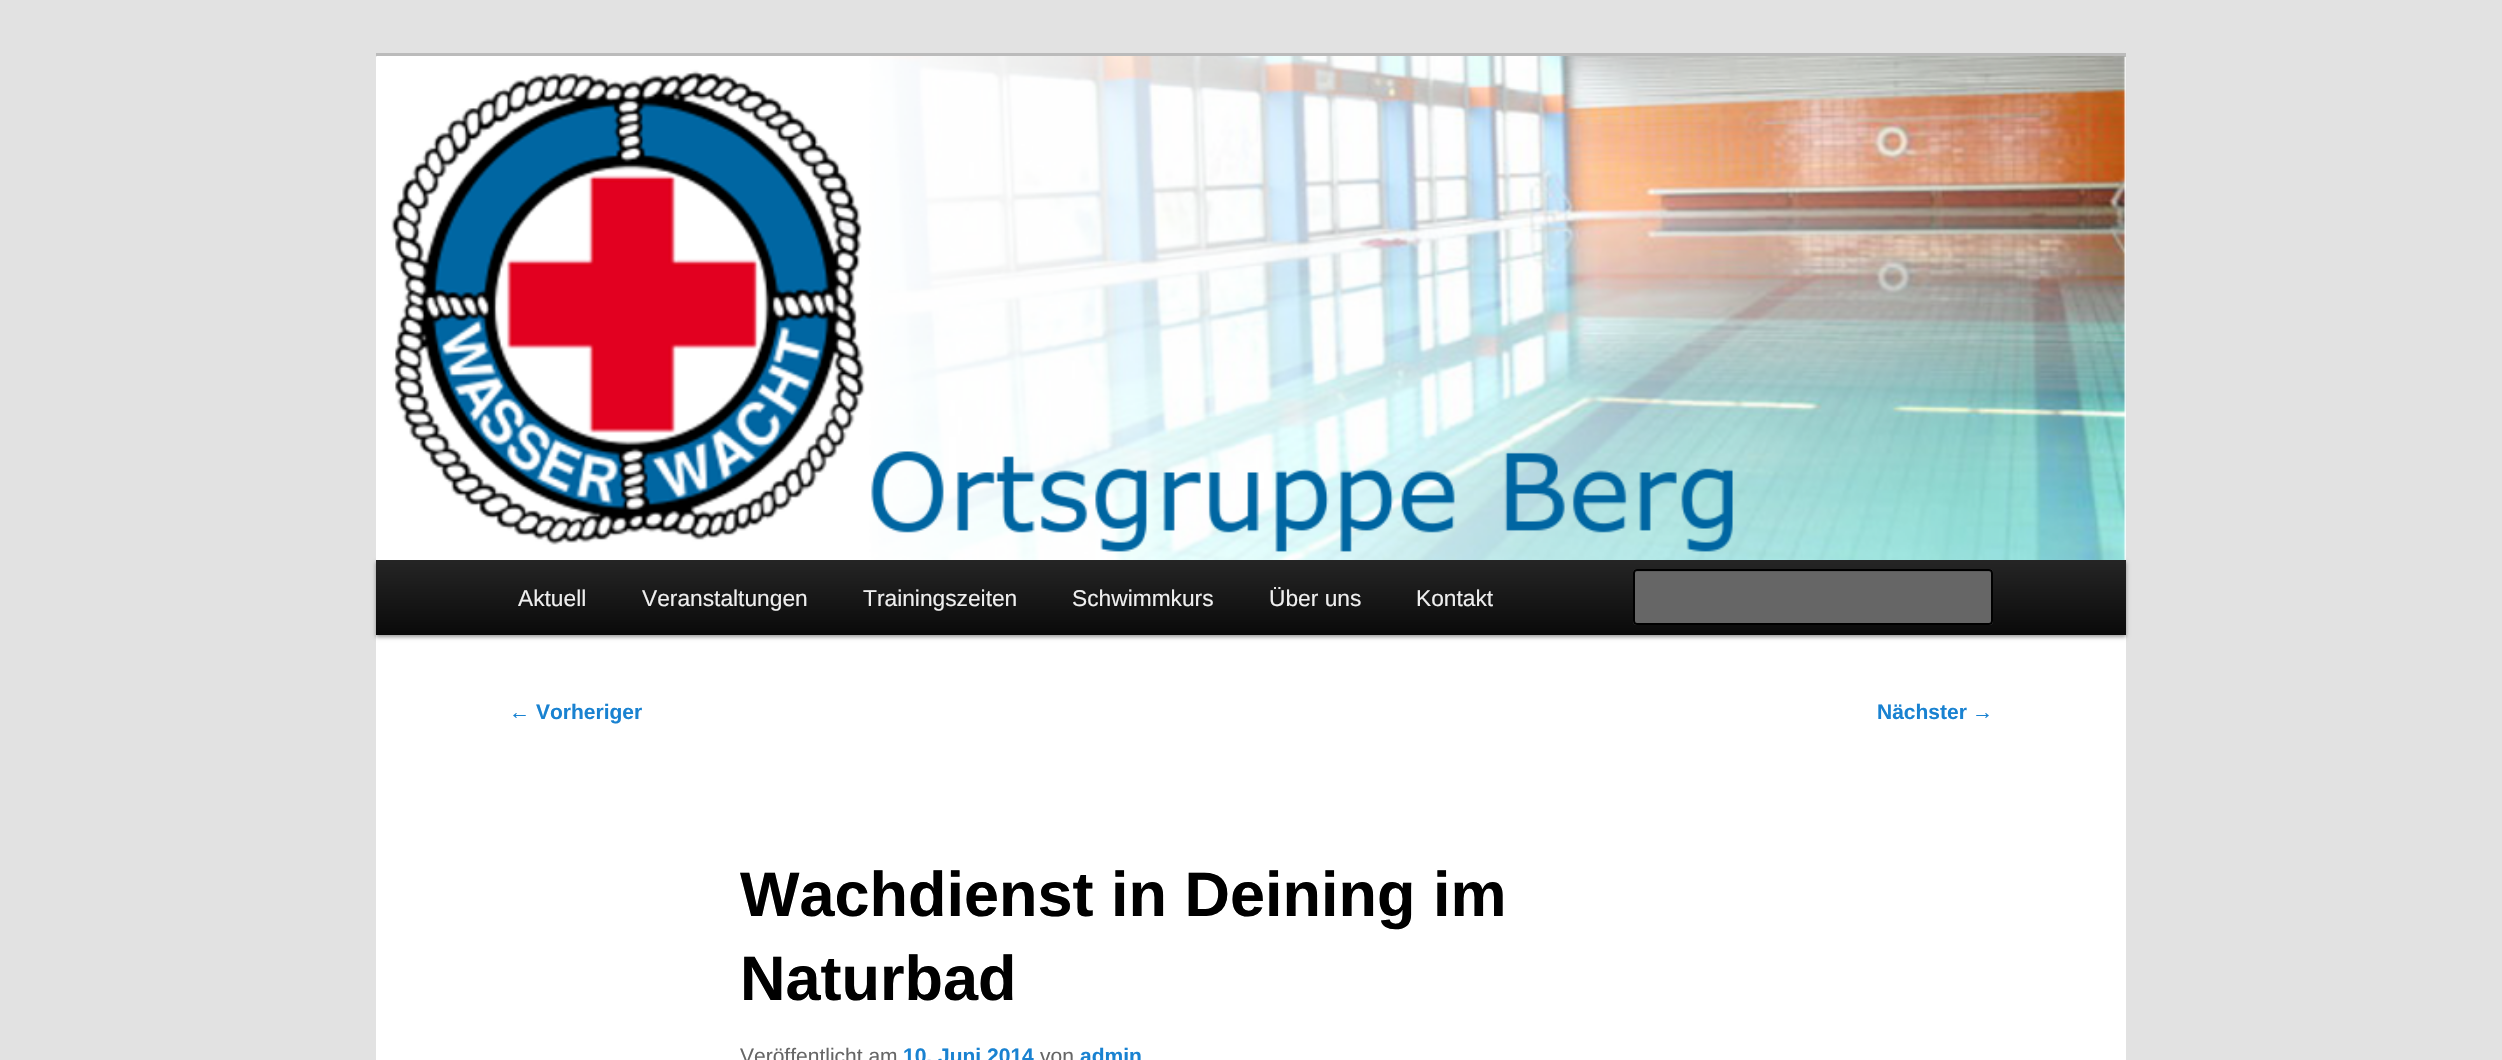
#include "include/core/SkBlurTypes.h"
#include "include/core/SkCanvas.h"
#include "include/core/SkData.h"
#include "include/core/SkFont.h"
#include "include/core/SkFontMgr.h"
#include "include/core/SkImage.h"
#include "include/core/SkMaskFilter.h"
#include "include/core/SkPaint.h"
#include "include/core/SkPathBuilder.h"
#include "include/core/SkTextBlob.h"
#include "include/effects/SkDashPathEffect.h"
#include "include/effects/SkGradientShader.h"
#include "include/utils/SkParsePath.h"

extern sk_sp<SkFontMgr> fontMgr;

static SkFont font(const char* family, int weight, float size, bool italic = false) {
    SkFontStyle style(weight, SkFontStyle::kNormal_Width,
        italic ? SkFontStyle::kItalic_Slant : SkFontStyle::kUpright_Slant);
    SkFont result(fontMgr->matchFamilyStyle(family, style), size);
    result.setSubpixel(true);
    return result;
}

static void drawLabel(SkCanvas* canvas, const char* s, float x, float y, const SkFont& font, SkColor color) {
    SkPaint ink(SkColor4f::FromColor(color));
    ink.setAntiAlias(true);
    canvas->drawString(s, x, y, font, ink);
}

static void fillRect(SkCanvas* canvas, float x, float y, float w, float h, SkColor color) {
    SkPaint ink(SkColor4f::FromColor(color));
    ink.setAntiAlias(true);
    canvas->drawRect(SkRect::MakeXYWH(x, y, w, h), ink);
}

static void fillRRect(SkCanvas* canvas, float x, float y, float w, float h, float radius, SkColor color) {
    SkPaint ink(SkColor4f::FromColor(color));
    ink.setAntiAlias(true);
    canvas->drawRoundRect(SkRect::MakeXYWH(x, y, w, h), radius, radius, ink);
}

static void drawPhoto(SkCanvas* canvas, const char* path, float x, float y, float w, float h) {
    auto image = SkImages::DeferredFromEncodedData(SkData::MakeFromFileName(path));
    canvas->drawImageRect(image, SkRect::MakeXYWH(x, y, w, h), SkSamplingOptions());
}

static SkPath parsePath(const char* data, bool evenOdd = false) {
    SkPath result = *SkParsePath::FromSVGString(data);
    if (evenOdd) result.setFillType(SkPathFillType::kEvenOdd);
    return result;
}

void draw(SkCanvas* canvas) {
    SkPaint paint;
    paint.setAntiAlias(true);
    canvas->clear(0xFFE2E2E2);
    fillRect(canvas, 376, 57, 1750, 1003, 0xFFFFFFFF);
    fillRect(canvas, 376, 53, 1750, 4, 0xFFBBBBBB);
    paint.setColor(0x66000000);
    paint.setMaskFilter(SkMaskFilter::MakeBlur(kNormal_SkBlurStyle, 2));
    canvas->drawRect(SkRect::MakeXYWH(376, 562, 1750, 75), paint);
    paint.setMaskFilter(nullptr);
    drawPhoto(canvas, "assets/img1.png", 376, 56, 1751, 504);
    {
        const SkColor colors[] = {0xFF252525, 0xFF0A0A0A};
        const float stops[] = {0, 1};
        const SkPoint ends[] = {{1251, 560}, {1251, 635}};
        paint.setShader(SkGradientShader::MakeLinear(ends, colors, stops, 2, SkTileMode::kClamp));
        paint.setAlpha(255);
    }
    canvas->drawRect(SkRect::MakeXYWH(376, 560, 1750, 75), paint);
    SkFont font1 = font("Liberation Sans", 400, 22.75f);
    drawLabel(canvas, "Aktuell", 518, 606, font1, 0xFFEEEEEE);
    drawLabel(canvas, "Veranstaltungen", 642, 606, font1, 0xFFEEEEEE);
    drawLabel(canvas, "Trainingszeiten", 863, 606, font1, 0xFFEEEEEE);
    drawLabel(canvas, "Schwimmkurs", 1072, 606, font1, 0xFFEEEEEE);
    drawLabel(canvas, "Über uns", 1269, 606, font1, 0xFFEEEEEE);
    drawLabel(canvas, "Kontakt", 1416, 606, font1, 0xFFEEEEEE);
    fillRRect(canvas, 1633, 569, 360, 56, 4, 0xFF666666);
    paint.setShader(nullptr);
    paint.setColor(0xFF5C5C5C);
    canvas->drawPath(parsePath("M1636 572H1990C1991 572 1992 573 1992 574C1992 573 1992 571 1990 571H1637L1635 572Z"), paint);
    paint.setStroke(true);
    paint.setStrokeWidth(2);
    paint.setColor(0xFF000000);
    canvas->drawRoundRect(SkRect::MakeXYWH(1634, 570, 358, 54), 3, 3, paint);
    SkFont font2 = font("Liberation Sans", 400, 21);
    drawLabel(canvas, "←", 509, 719, font2, 0xFF1982D1);
    SkFont font3 = font("Liberation Sans", 700, 21);
    drawLabel(canvas, "Vorheriger", 536, 719, font3, 0xFF1982D1);
    drawLabel(canvas, "Nächster", 1877, 719, font3, 0xFF1982D1);
    drawLabel(canvas, "→", 1972, 719, font2, 0xFF1982D1);
    SkFont font4 = font("Liberation Sans", 700, 63);
    drawLabel(canvas, "Wachdienst in Deining im", 740, 916, font4, 0xFF000000);
    drawLabel(canvas, "Naturbad", 740, 1000, font4, 0xFF000000);
    drawLabel(canvas, "Veröffentlicht am", 740, 1063, font2, 0xFF666666);
    drawLabel(canvas, "10. Juni 2014", 903, 1063, font3, 0xFF1982D1);
    drawLabel(canvas, "von", 1040, 1063, font2, 0xFF666666);
    drawLabel(canvas, "admin", 1080, 1063, font3, 0xFF1982D1);
}
